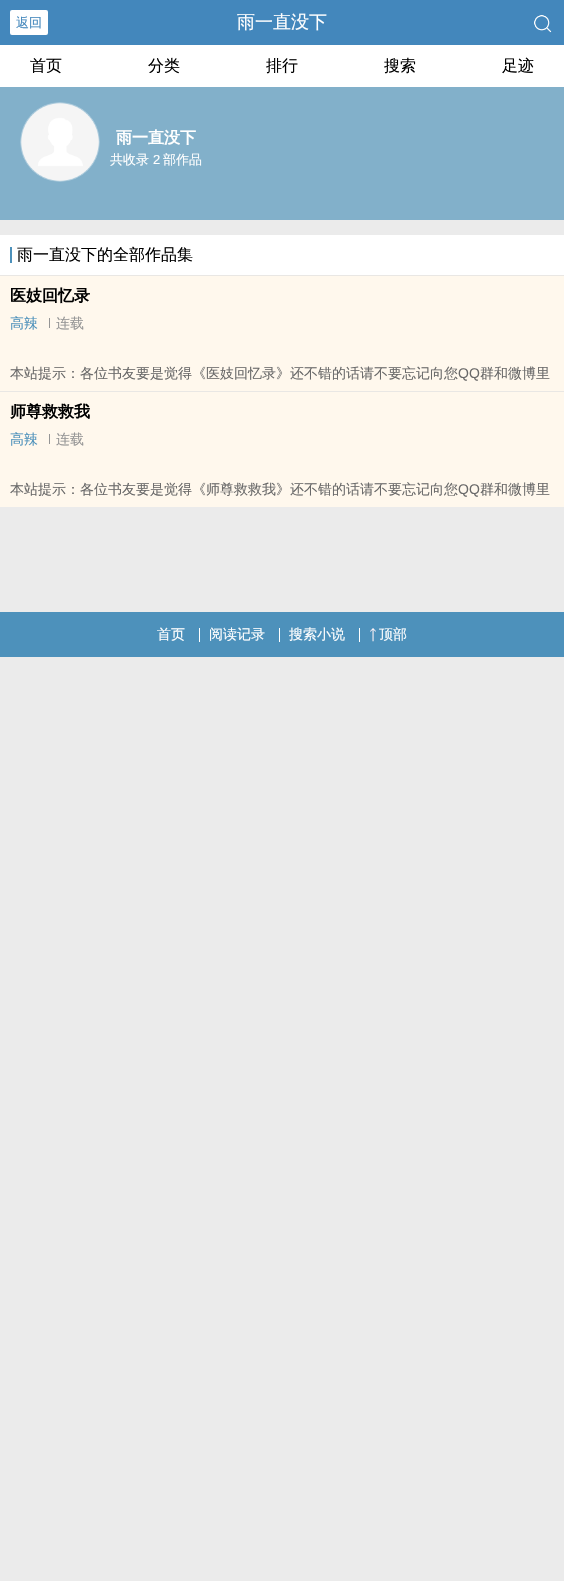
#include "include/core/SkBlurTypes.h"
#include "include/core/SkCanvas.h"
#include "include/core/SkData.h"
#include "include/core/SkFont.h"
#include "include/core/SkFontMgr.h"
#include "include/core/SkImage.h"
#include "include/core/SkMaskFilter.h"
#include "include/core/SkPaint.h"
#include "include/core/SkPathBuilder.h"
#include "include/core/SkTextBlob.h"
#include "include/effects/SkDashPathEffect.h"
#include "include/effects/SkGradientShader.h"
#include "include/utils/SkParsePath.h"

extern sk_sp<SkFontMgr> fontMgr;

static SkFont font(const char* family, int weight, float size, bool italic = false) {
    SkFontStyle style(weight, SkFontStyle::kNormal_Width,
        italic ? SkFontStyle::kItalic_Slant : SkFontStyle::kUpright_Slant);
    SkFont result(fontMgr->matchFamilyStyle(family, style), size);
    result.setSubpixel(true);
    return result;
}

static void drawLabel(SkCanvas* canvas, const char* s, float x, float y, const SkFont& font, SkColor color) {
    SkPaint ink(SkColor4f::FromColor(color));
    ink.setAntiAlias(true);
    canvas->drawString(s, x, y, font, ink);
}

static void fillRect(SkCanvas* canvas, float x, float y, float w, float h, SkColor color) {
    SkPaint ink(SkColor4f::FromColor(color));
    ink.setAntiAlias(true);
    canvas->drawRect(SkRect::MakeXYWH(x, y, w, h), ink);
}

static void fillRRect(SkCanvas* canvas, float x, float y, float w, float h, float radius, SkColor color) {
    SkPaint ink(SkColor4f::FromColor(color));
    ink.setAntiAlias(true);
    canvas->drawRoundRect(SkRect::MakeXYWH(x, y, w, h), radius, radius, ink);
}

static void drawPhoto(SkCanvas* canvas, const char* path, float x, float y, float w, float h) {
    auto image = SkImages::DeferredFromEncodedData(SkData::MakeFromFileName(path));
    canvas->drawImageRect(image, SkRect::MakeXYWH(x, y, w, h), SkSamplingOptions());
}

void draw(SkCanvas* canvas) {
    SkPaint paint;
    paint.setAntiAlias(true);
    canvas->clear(0xFFEBEBEB);
    fillRect(canvas, 0, 0, 564, 45, 0xFF4387BC);
    fillRRect(canvas, 10, 10, 38, 25, 2, 0xFFFFFFFF);
    SkFont font1 = font("WenQuanYi Zen Hei", 500, 13);
    drawLabel(canvas, "返回", 16, 27, font1, 0xFF4387BC);
    SkFont font2 = font("WenQuanYi Zen Hei", 500, 18);
    drawLabel(canvas, "雨一直没下", 237, 28, font2, 0xFFFFFFFF);
    drawPhoto(canvas, "assets/img1.png", 534, 15, 18, 18);
    fillRect(canvas, 0, 45, 564, 42, 0xFFFFFFFF);
    SkFont font3 = font("WenQuanYi Zen Hei", 500, 16);
    drawLabel(canvas, "首页", 30, 71, font3, 0xFF000000);
    drawLabel(canvas, "分类", 148, 71, font3, 0xFF000000);
    drawLabel(canvas, "排行", 266, 71, font3, 0xFF000000);
    drawLabel(canvas, "搜索", 384, 71, font3, 0xFF000000);
    drawLabel(canvas, "足迹", 502, 71, font3, 0xFF000000);
    fillRect(canvas, 0, 87, 564, 133, 0xFF82B0CA);
    drawPhoto(canvas, "assets/img2.png", 20, 102, 80, 80);
    SkFont font4 = font("WenQuanYi Zen Hei", 700, 16);
    drawLabel(canvas, "雨一直没下", 116, 143, font4, 0xFFFFFFFF);
    drawLabel(canvas, "共收录", 110, 164, font1, 0xFFFFFFFF);
    SkFont font5 = font("Liberation Sans", 400, 13);
    drawLabel(canvas, "2", 153, 164, font5, 0xFFFFFFFF);
    drawLabel(canvas, "部作品", 163, 164, font1, 0xFFFFFFFF);
    fillRect(canvas, 0, 235, 564, 40, 0xFFFFFFFF);
    fillRect(canvas, 10, 247, 2, 16, 0xFF4D91BB);
    drawLabel(canvas, "雨一直没下的全部作品集", 17, 260, font3, 0xFF000000);
    fillRect(canvas, 0, 276, 564, 115, 0xFFFFF8ED);
    fillRect(canvas, 0, 275, 564, 1, 0xFFE9E7E4);
    drawLabel(canvas, "医妓回忆录", 10, 301, font4, 0xFF000000);
    SkFont font6 = font("WenQuanYi Zen Hei", 500, 14);
    drawLabel(canvas, "高辣", 10, 328, font6, 0xFF4D91BB);
    fillRect(canvas, 49, 318, 1, 10, 0xFF959595);
    drawLabel(canvas, "连载", 56, 328, font6, 0xFF959595);
    drawLabel(canvas, "本站提示：各位书友要是觉得《医妓回忆录》还不错的话请不要忘记向您", 10, 378, font6, 0xFF696969);
    SkFont font7 = font("Liberation Sans", 400, 14);
    drawLabel(canvas, "QQ", 458, 378, font7, 0xFF696969);
    drawLabel(canvas, "群和微博里", 480, 378, font6, 0xFF696969);
    fillRect(canvas, 0, 392, 564, 115, 0xFFFFF8ED);
    fillRect(canvas, 0, 391, 564, 1, 0xFFE9E7E4);
    drawLabel(canvas, "师尊救救我", 10, 417, font4, 0xFF000000);
    drawLabel(canvas, "高辣", 10, 444, font6, 0xFF4D91BB);
    fillRect(canvas, 49, 434, 1, 10, 0xFF959595);
    drawLabel(canvas, "连载", 56, 444, font6, 0xFF959595);
    drawLabel(canvas, "本站提示：各位书友要是觉得《师尊救救我》还不错的话请不要忘记向您", 10, 494, font6, 0xFF696969);
    drawLabel(canvas, "QQ", 458, 494, font7, 0xFF696969);
    drawLabel(canvas, "群和微博里", 480, 494, font6, 0xFF696969);
    fillRect(canvas, 0, 612, 564, 45, 0xFF4D91BB);
    drawLabel(canvas, "首页", 157, 639, font6, 0xFFFFFFFF);
    fillRect(canvas, 199, 628, 1, 14, 0xFFFFFFFF);
    drawLabel(canvas, "阅读记录", 209, 639, font6, 0xFFFFFFFF);
    fillRect(canvas, 279, 628, 1, 14, 0xFFFFFFFF);
    drawLabel(canvas, "搜索小说", 289, 639, font6, 0xFFFFFFFF);
    fillRect(canvas, 359, 628, 1, 14, 0xFFFFFFFF);
    drawPhoto(canvas, "assets/img3.png", 370, 628, 6, 14);
    drawLabel(canvas, "顶部", 379, 639, font6, 0xFFFFFFFF);
}
